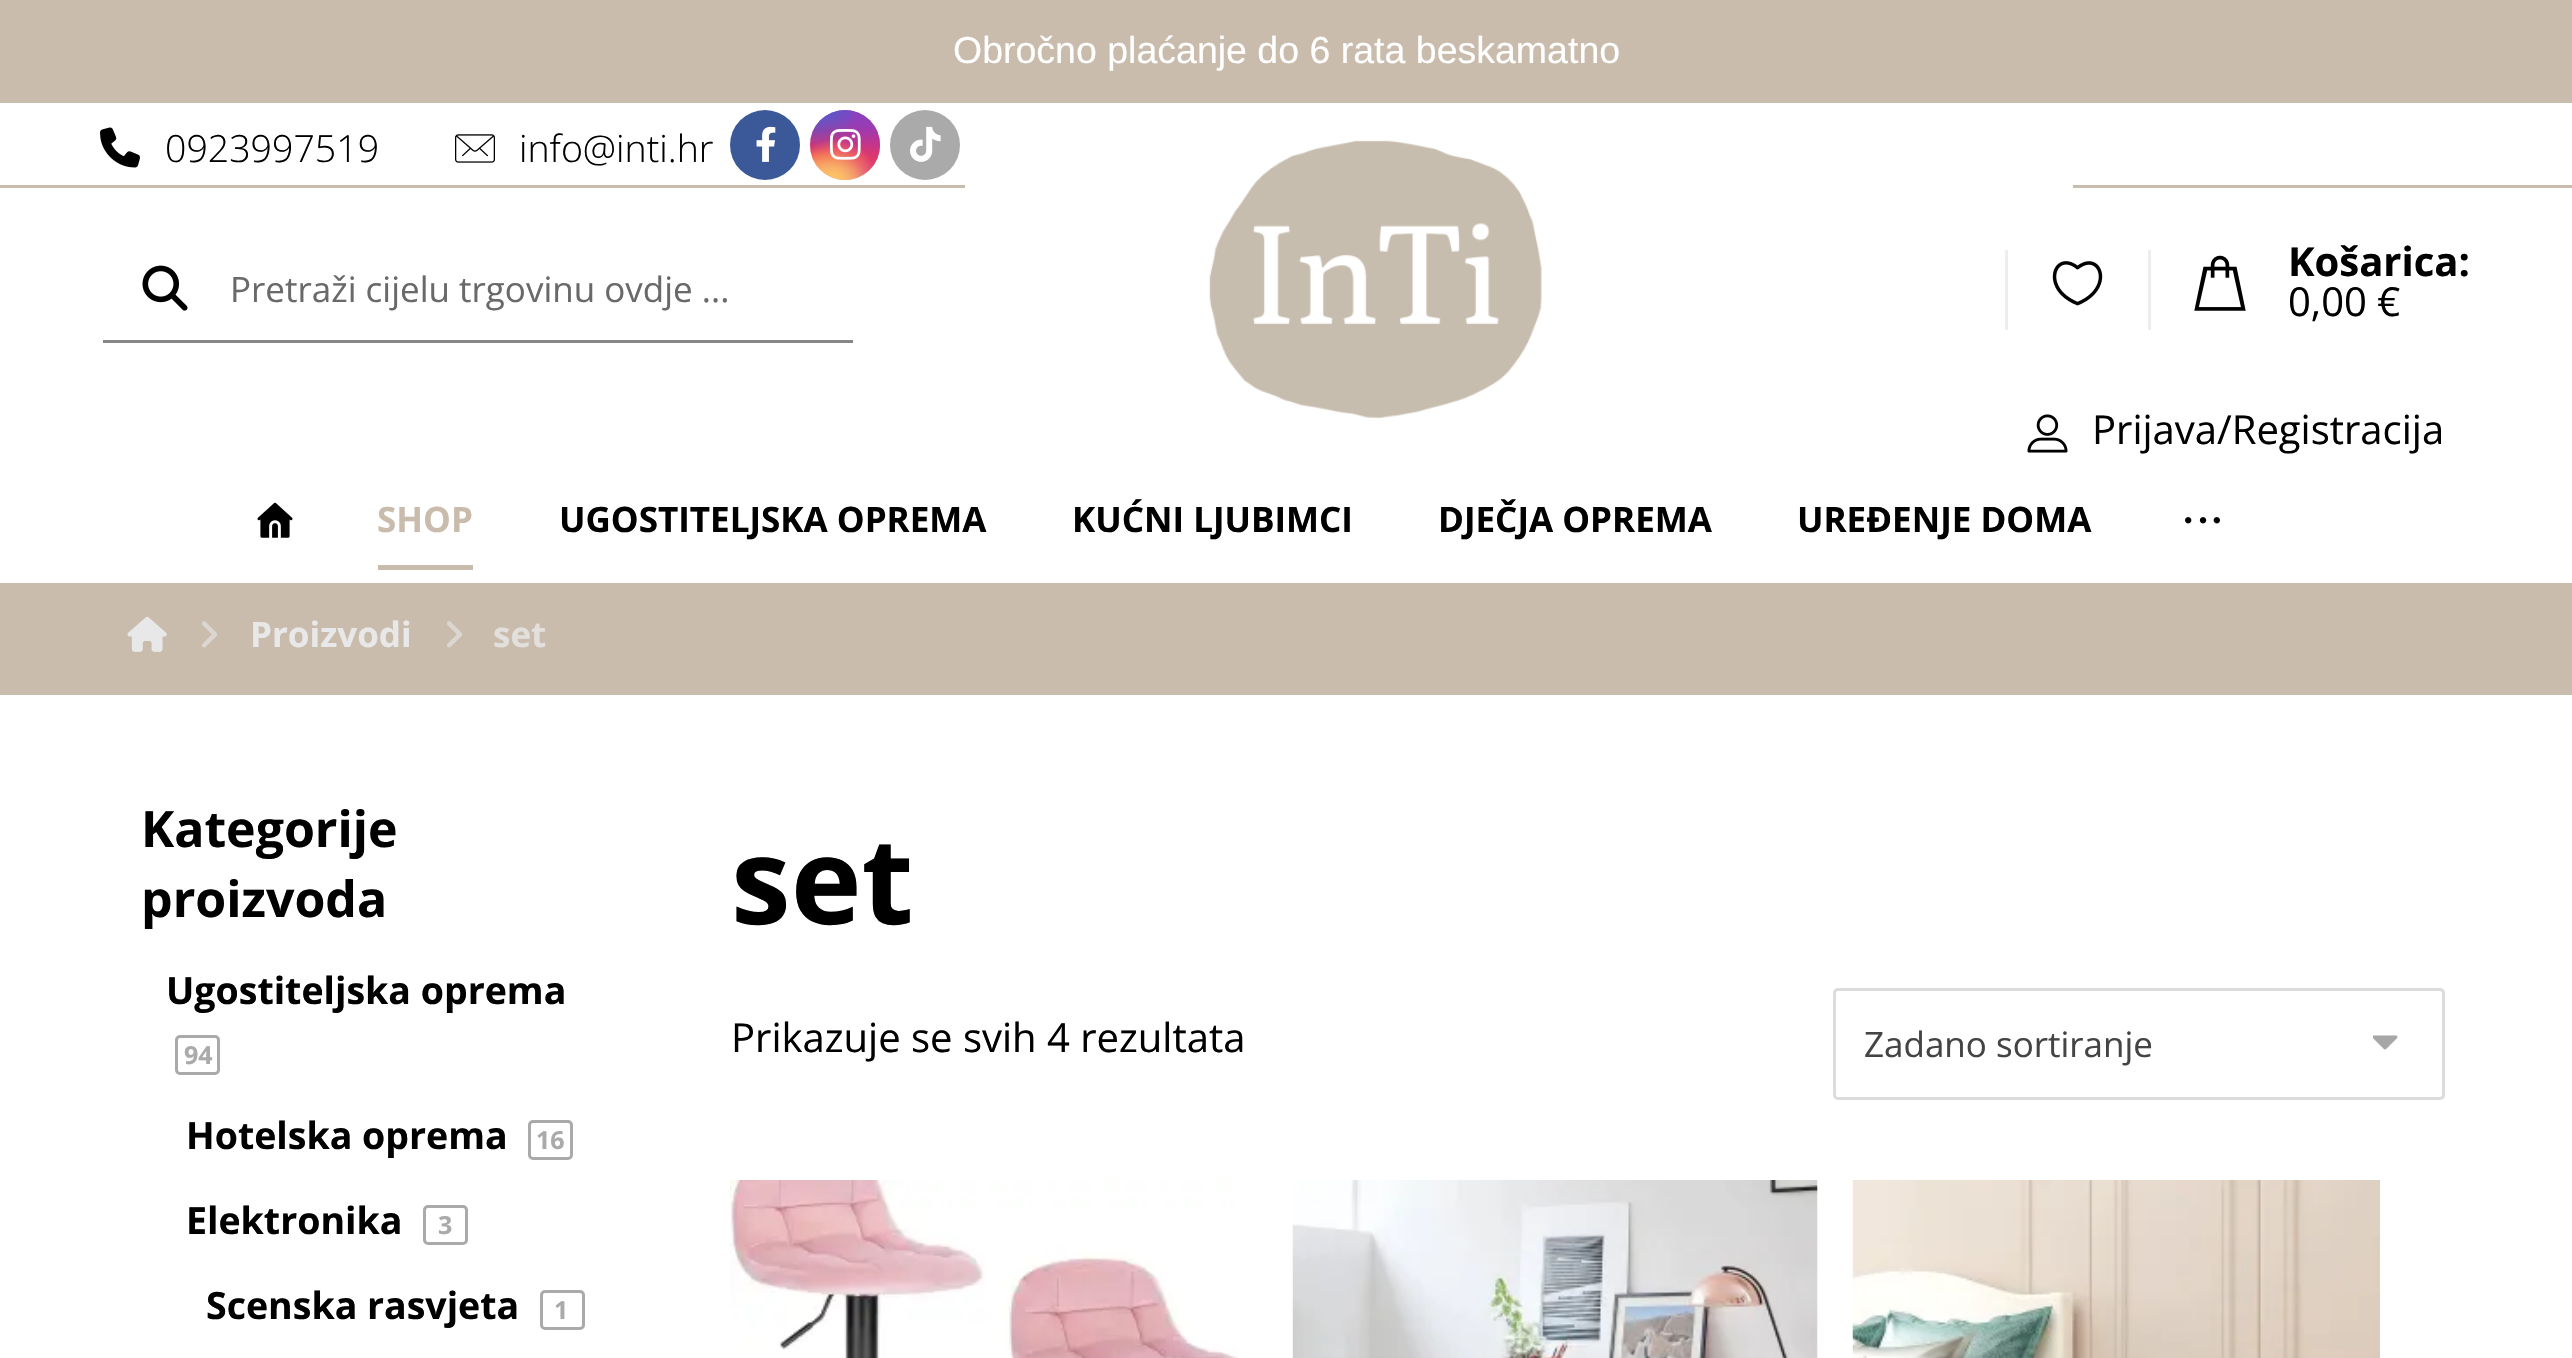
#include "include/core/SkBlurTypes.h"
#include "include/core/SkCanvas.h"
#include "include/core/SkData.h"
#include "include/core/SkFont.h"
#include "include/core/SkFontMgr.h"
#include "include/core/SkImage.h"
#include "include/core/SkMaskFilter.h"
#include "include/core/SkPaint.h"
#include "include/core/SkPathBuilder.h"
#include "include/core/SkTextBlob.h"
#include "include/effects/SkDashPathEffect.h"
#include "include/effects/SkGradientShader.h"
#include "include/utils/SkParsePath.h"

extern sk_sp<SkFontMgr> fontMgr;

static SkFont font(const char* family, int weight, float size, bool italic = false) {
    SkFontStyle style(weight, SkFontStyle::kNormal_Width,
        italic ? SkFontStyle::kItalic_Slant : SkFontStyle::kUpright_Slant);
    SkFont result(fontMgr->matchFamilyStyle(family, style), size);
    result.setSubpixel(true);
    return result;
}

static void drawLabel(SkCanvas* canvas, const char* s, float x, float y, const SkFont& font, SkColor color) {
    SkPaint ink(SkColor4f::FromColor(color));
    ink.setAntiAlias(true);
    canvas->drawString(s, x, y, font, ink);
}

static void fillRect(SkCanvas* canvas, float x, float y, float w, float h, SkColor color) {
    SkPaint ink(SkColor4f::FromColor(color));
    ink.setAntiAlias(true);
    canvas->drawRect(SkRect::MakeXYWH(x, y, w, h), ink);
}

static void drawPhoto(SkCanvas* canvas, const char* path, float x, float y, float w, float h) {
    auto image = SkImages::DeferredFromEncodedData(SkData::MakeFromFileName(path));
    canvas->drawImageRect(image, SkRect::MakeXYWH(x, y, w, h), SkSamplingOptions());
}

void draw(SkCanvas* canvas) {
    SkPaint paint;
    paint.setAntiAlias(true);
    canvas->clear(0xFFFFFFFF);
    fillRect(canvas, 0, 0, 2572, 103, 0xFFC9BCAC);
    SkFont font1 = font("Liberation Sans", 400, 37.5f);
    drawLabel(canvas, "Obročno plaćanje do 6 rata beskamatno", 953, 63, font1, 0xFFFFFFFF);
    fillRect(canvas, 0, 185, 965, 3, 0xFFC9BCAC);
    drawPhoto(canvas, "assets/img1.png", 100, 127, 40, 41);
    SkFont font2 = font("Open Sans", 300, 37.5f);
    drawLabel(canvas, "0923997519", 165, 162, font2, 0xFF000000);
    drawPhoto(canvas, "assets/img2.png", 455, 134, 40, 29);
    drawLabel(canvas, "info@inti.hr", 519, 162, font2, 0xFF000000);
    paint.setColor(0xFF3B5998);
    canvas->drawCircle(765, 145, 35, paint);
    drawPhoto(canvas, "assets/img3.png", 756, 126, 20, 36);
    {
        const SkColor colors[] = {0xFF6559CA, 0xFFBC318F, 0xFFE42E66, 0xFFFA5332, 0xFFFFDC80};
        const float stops[] = {0, 0.3f, 0.5f, 0.7f, 1};
        const SkPoint ends[] = {{845, 110}, {845, 180}};
        paint.setShader(SkGradientShader::MakeLinear(ends, colors, stops, 5, SkTileMode::kClamp));
        paint.setAlpha(255);
    }
    canvas->drawCircle(845, 145, 35, paint);
    {
        const SkColor colors[] = {0xFFD9317A, 0x00D9317A};
        const float stops[] = {0, 1};
        paint.setShader(SkGradientShader::MakeRadial({880, 180}, 99, colors, stops, 2, SkTileMode::kClamp));
        paint.setAlpha(255);
    }
    canvas->drawCircle(845, 145, 35, paint);
    {
        const SkColor colors[] = {0xFF893DC2, 0x00893DC2};
        const float stops[] = {0, 0.5f};
        SkMatrix m = SkMatrix::Translate(852, 96).preScale(59, 119);
        paint.setShader(SkGradientShader::MakeRadial({0, 0}, 1, colors, stops, 2, SkTileMode::kClamp, 0, &m));
        paint.setAlpha(255);
    }
    canvas->drawCircle(845, 145, 35, paint);
    {
        const SkColor colors[] = {0xFF893DC2, 0x00893DC2};
        const float stops[] = {0, 0.5f};
        paint.setShader(SkGradientShader::MakeRadial({880, 110}, 99, colors, stops, 2, SkTileMode::kClamp));
        paint.setAlpha(255);
    }
    canvas->drawCircle(845, 145, 35, paint);
    {
        const SkColor colors[] = {0xFF5258CF, 0x005258CF};
        const float stops[] = {0, 0.5f};
        SkMatrix m = SkMatrix::Translate(824, 75).preScale(79, 148);
        paint.setShader(SkGradientShader::MakeRadial({0, 0}, 1, colors, stops, 2, SkTileMode::kClamp, 0, &m));
        paint.setAlpha(255);
    }
    canvas->drawCircle(845, 145, 35, paint);
    {
        const SkColor colors[] = {0xFF5258CF, 0x005258CF};
        const float stops[] = {0, 0.5f};
        SkMatrix m = SkMatrix::Translate(810, 93).preScale(99, 124);
        paint.setShader(SkGradientShader::MakeRadial({0, 0}, 1, colors, stops, 2, SkTileMode::kClamp, 0, &m));
        paint.setAlpha(255);
    }
    canvas->drawCircle(845, 145, 35, paint);
    {
        const SkColor colors[] = {0xFFFEDA7E, 0x00FEDA7E};
        const float stops[] = {0, 0.5f};
        paint.setShader(SkGradientShader::MakeRadial({817, 208}, 117, colors, stops, 2, SkTileMode::kClamp));
        paint.setAlpha(255);
    }
    canvas->drawCircle(845, 145, 35, paint);
    {
        const SkColor colors[] = {0xFFFEC564, 0x00FEC564};
        const float stops[] = {0, 0.5f};
        paint.setShader(SkGradientShader::MakeRadial({835, 180}, 83, colors, stops, 2, SkTileMode::kClamp));
        paint.setAlpha(255);
    }
    canvas->drawCircle(845, 145, 35, paint);
    drawPhoto(canvas, "assets/img4.png", 830, 129, 31, 31);
    paint.setShader(nullptr);
    paint.setColor(0xFFAAAAAA);
    canvas->drawCircle(925, 145, 35, paint);
    drawPhoto(canvas, "assets/img5.png", 910, 126, 31, 36);
    fillRect(canvas, 2073, 185, 499, 3, 0xFFC9BCAC);
    fillRect(canvas, 103, 340, 750, 3, 0xFF878787);
    drawPhoto(canvas, "assets/img6.png", 142, 265, 46, 46);
    SkFont font3 = font("Open Sans", 400, 35);
    drawLabel(canvas, "Pretraži cijelu trgovinu ovdje ...", 230, 302, font3, 0xFF696969);
    drawPhoto(canvas, "assets/img7.png", 1209, 140, 333, 279);
    fillRect(canvas, 2005, 250, 3, 80, 0xFFEDEDED);
    drawPhoto(canvas, "assets/img8.png", 2052, 261, 51, 45);
    fillRect(canvas, 2148, 250, 3, 80, 0xFFEDEDED);
    drawPhoto(canvas, "assets/img9.png", 2194, 255, 52, 56);
    SkFont font4 = font("Open Sans", 700, 40);
    drawLabel(canvas, "Košarica:", 2288, 276, font4, 0xFF000000);
    SkFont font5 = font("Open Sans", 400, 40);
    drawLabel(canvas, "0,00 €", 2288, 316, font5, 0xFF000000);
    drawPhoto(canvas, "assets/img10.png", 2027, 414, 41, 39);
    drawLabel(canvas, "Prijava/Registracija", 2092, 444, font5, 0xFF000000);
    drawPhoto(canvas, "assets/img11.png", 257, 502, 36, 36);
    SkFont font6 = font("Open Sans", 700, 35);
    drawLabel(canvas, "SHOP", 377, 532, font6, 0xFFC9BCAC);
    fillRect(canvas, 378, 565, 95, 5, 0xFFC9BCAC);
    drawLabel(canvas, "UGOSTITELJSKA OPREMA", 559, 532, font6, 0xFF000000);
    drawLabel(canvas, "KUĆNI LJUBIMCI", 1072, 532, font6, 0xFF000000);
    drawLabel(canvas, "DJEČJA OPREMA", 1438, 532, font6, 0xFF000000);
    drawLabel(canvas, "UREĐENJE DOMA", 1797, 532, font6, 0xFF000000);
    drawPhoto(canvas, "assets/img12.png", 2185, 517, 35, 7);
    fillRect(canvas, 0, 583, 2572, 112, 0xFFC9BCAC);
    drawPhoto(canvas, "assets/img13.png", 127, 616, 40, 36);
    drawPhoto(canvas, "assets/img14.png", 202, 621, 16, 27);
    drawLabel(canvas, "Proizvodi", 250, 647, font6, 0xFFE8E8E8);
    drawPhoto(canvas, "assets/img14.png", 447, 621, 16, 27);
    drawLabel(canvas, "set", 493, 647, font6, 0xFFE2DFDC);
    SkFont font7 = font("Open Sans", 700, 50);
    drawLabel(canvas, "Kategorije", 141, 847, font7, 0xFF000000);
    drawLabel(canvas, "proizvoda", 141, 917, font7, 0xFF000000);
    SkFont font8 = font("Open Sans", 700, 37.5f);
    drawLabel(canvas, "Ugostiteljska oprema", 166, 1004, font8, 0xFF000000);
    paint.setStroke(true);
    paint.setStrokeWidth(3);
    canvas->drawRoundRect(SkRect::MakeXYWH(176.5f, 1036.5f, 42, 37), 3.5f, 3.5f, paint);
    SkFont font9 = font("Open Sans", 700, 25);
    drawLabel(canvas, "94", 184, 1064, font9, 0xFFAAAAAA);
    drawLabel(canvas, "Hotelska oprema", 186, 1149, font8, 0xFF000000);
    canvas->drawRoundRect(SkRect::MakeXYWH(529.5f, 1121.5f, 42, 37), 3.5f, 3.5f, paint);
    drawLabel(canvas, "16", 536, 1149, font9, 0xFFAAAAAA);
    drawLabel(canvas, "Elektronika", 186, 1234, font8, 0xFF000000);
    canvas->drawRoundRect(SkRect::MakeXYWH(424.5f, 1206.5f, 42, 37), 3.5f, 3.5f, paint);
    drawLabel(canvas, "3", 438, 1234, font9, 0xFFAAAAAA);
    drawLabel(canvas, "Scenska rasvjeta", 206, 1319, font8, 0xFF000000);
    canvas->drawRoundRect(SkRect::MakeXYWH(541.5f, 1291.5f, 42, 37), 3.5f, 3.5f, paint);
    drawLabel(canvas, "1", 554, 1319, font9, 0xFFAAAAAA);
    SkFont font10 = font("Open Sans", 700, 120);
    drawLabel(canvas, "set", 731, 924, font10, 0xFF000000);
    drawLabel(canvas, "Prikazuje se svih 4 rezultata", 731, 1052, font5, 0xFF000000);
    drawPhoto(canvas, "assets/img15.png", 2373, 1035, 25, 15);
    paint.setColor(0xFFDCDCDC);
    canvas->drawRoundRect(SkRect::MakeXYWH(1834.5f, 989.5f, 609, 109), 3.5f, 3.5f, paint);
    drawLabel(canvas, "Zadano sortiranje", 1864, 1057, font3, 0xFF444444);
    drawPhoto(canvas, "assets/img16.png", 730, 1180, 509, 178);
    drawPhoto(canvas, "assets/img17.png", 1292, 1180, 526, 178);
    drawPhoto(canvas, "assets/img18.png", 1852, 1180, 528, 178);
}
